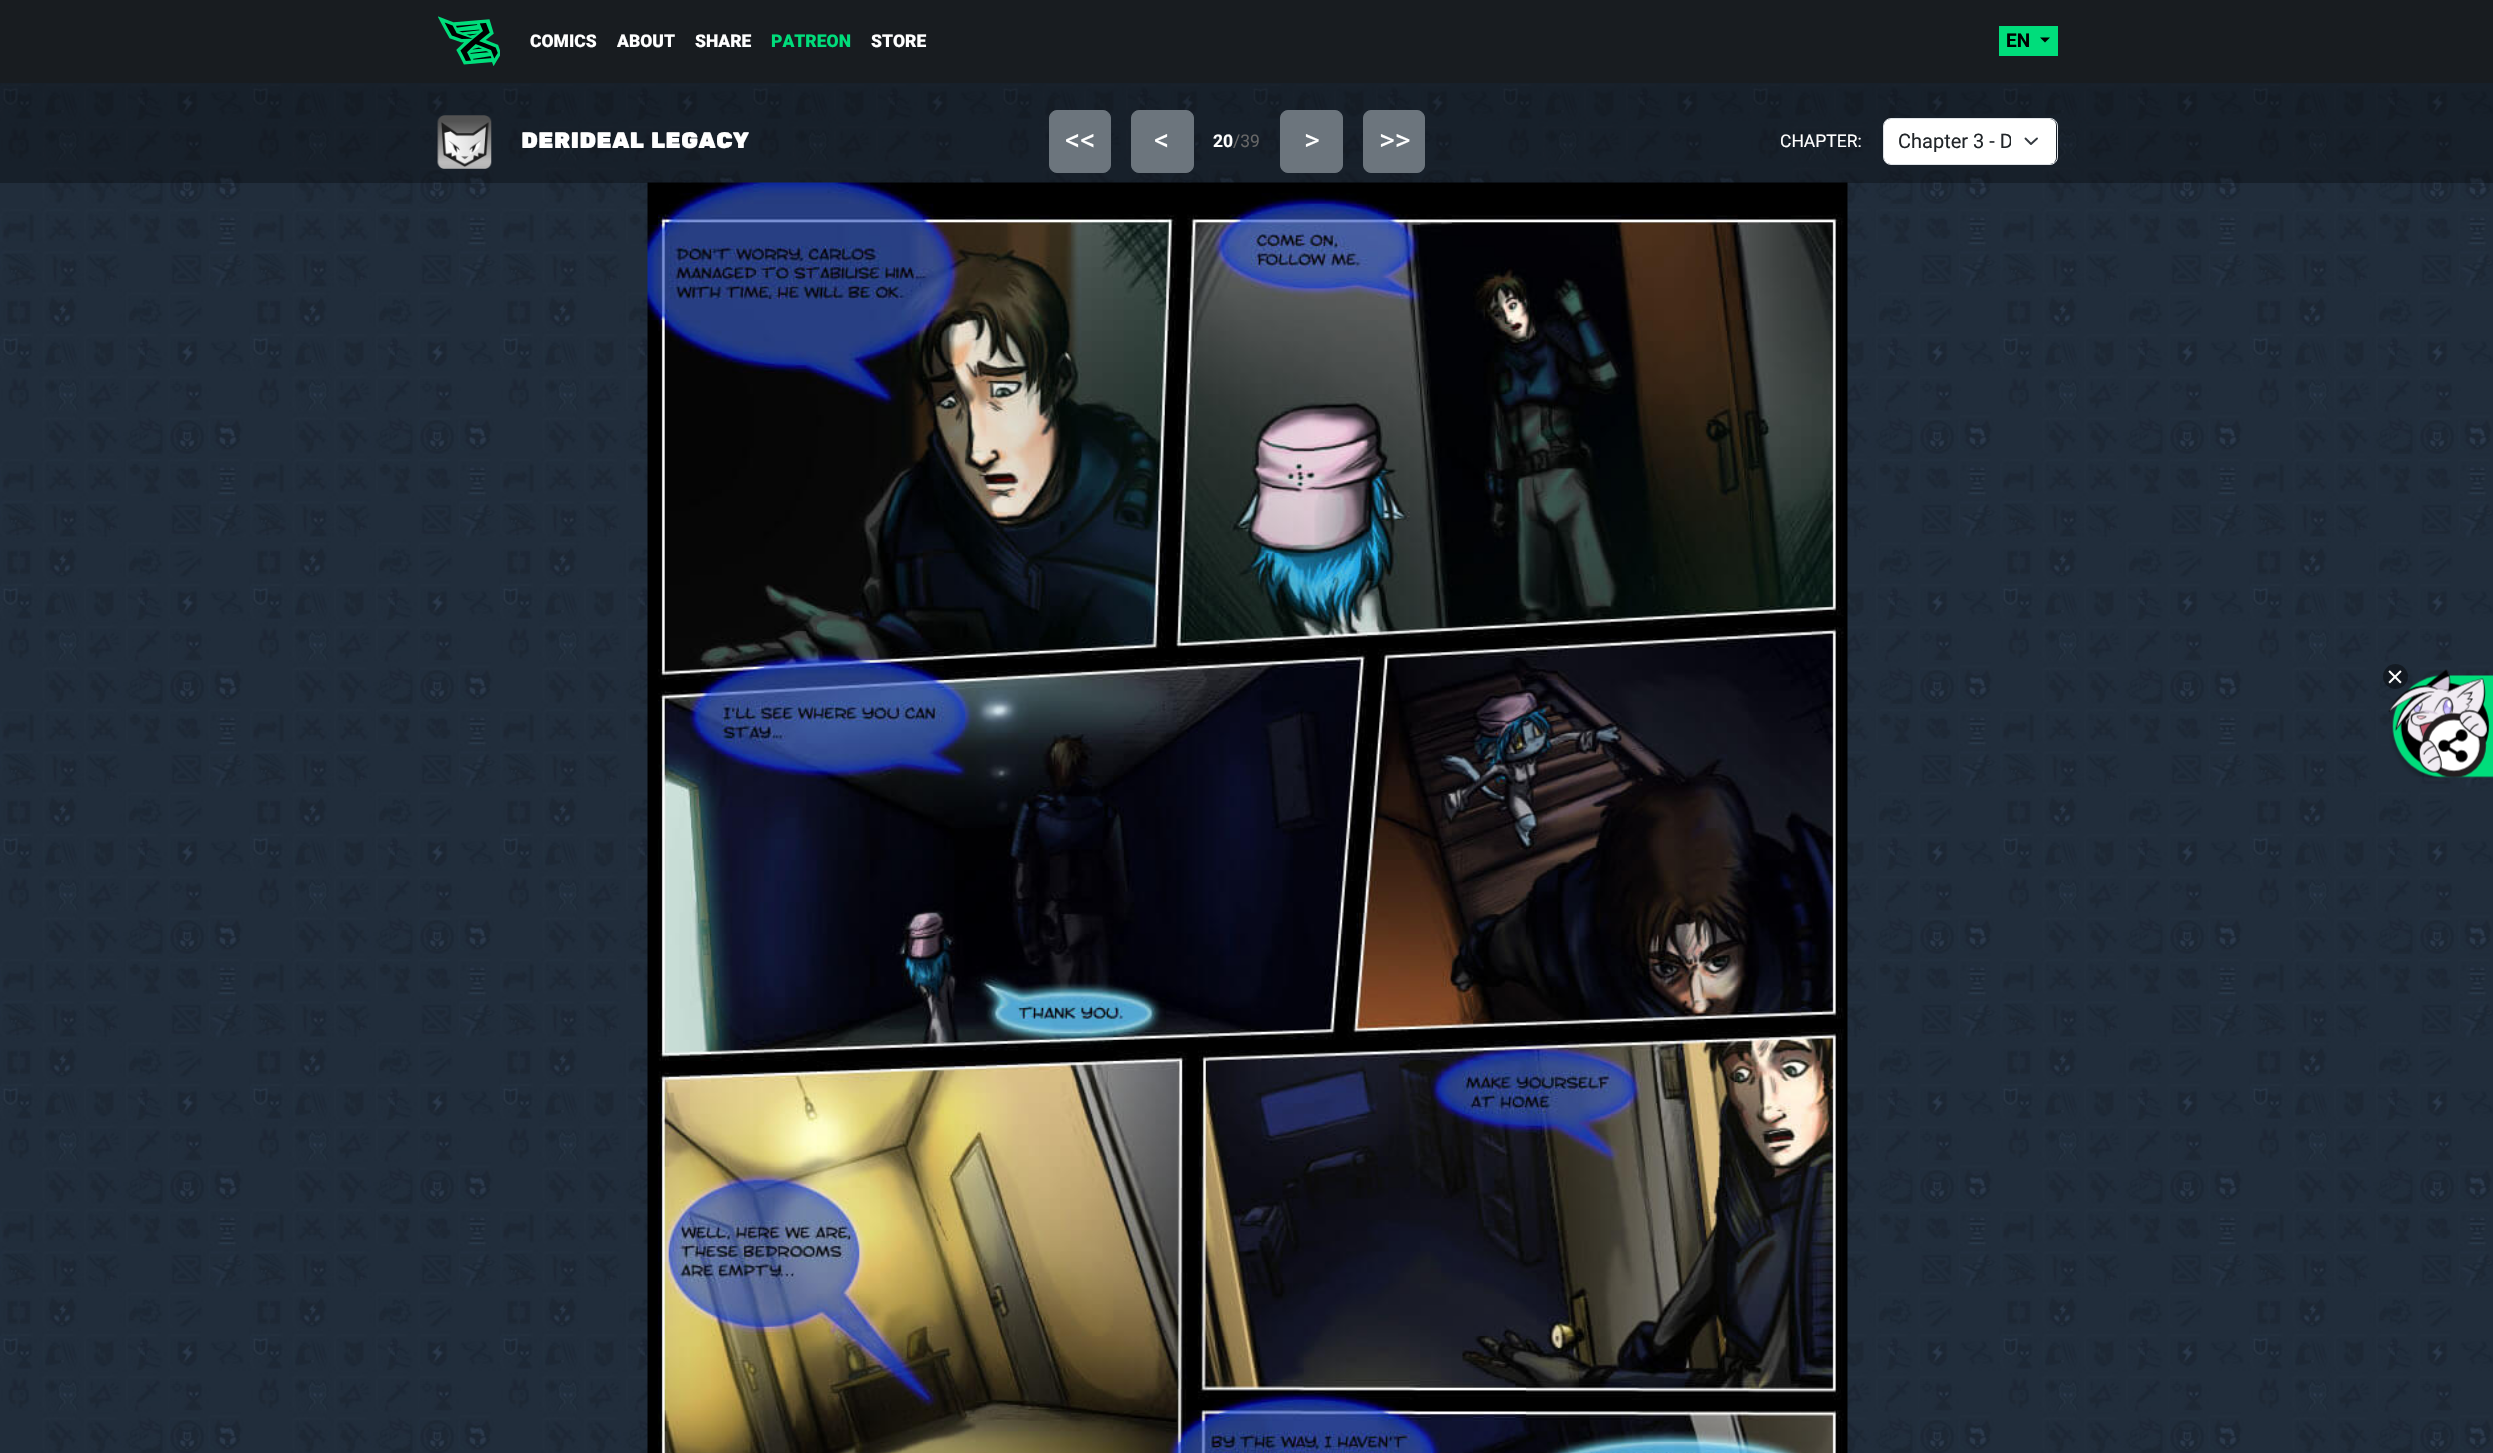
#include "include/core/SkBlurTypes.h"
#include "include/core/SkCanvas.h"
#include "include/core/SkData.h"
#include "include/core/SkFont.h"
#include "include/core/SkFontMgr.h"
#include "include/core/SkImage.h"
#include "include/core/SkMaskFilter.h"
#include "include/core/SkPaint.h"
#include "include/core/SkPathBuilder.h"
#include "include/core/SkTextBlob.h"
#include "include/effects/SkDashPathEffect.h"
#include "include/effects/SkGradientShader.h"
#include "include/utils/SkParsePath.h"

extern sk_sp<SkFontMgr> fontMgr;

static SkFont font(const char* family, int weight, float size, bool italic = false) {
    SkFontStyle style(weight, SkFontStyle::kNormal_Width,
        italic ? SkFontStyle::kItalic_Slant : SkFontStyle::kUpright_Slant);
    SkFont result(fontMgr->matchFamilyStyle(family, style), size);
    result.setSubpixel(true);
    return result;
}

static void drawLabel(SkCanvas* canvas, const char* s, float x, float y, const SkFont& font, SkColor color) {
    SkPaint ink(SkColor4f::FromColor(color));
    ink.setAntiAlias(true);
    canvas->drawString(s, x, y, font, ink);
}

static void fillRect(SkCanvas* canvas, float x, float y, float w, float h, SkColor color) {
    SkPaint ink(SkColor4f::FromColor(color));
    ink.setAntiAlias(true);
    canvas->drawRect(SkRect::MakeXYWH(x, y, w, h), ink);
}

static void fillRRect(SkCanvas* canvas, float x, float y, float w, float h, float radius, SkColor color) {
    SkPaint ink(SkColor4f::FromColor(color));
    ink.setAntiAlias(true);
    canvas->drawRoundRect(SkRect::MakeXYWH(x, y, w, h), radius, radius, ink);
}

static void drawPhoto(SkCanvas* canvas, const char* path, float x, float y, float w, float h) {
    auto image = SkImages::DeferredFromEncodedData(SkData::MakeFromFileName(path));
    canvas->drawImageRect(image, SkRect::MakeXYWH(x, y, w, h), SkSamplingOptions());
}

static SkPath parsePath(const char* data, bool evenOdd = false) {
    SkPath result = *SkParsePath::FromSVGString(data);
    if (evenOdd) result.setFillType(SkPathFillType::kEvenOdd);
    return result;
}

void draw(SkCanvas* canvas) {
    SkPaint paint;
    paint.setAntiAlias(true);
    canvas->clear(0xFFFFFFFF);
    drawPhoto(canvas, "assets/img1.png", 0, 83, 2493, 1370);
    fillRect(canvas, 0, 0, 2493, 83, 0xFF181C20);
    drawPhoto(canvas, "assets/img2.png", 438, 16, 62, 50);
    SkFont font1 = font("Roboto", 900, 17.5f);
    drawLabel(canvas, "COMICS", 530, 47, font1, 0xFFFFFFFF);
    drawLabel(canvas, "ABOUT", 617, 47, font1, 0xFFFFFFFF);
    drawLabel(canvas, "SHARE", 695, 47, font1, 0xFFFFFFFF);
    drawLabel(canvas, "PATREON", 771, 47, font1, 0xFF00DD7B);
    drawLabel(canvas, "STORE", 871, 47, font1, 0xFFFFFFFF);
    fillRect(canvas, 1999, 26, 59, 30, 0xFF00DD7B);
    SkFont font2 = font("Roboto", 700, 19);
    drawLabel(canvas, "EN", 2006, 47, font2, 0xFF000000);
    paint.setColor(0xFF000000);
    canvas->drawPath(parsePath("M2040 37.5H2050L2045 42.5Z"), paint);
    fillRect(canvas, 0, 83, 2493, 100, 0x4D000000);
    drawPhoto(canvas, "assets/img3.png", 437, 115, 55, 54);
    SkFont font3 = font("Rubik One", 400, 22.5f);
    drawLabel(canvas, "DERIDEAL LEGACY", 521, 148, font3, 0xFFFFFFFF);
    paint.setColor(0xFF6C757D);
    canvas->drawRoundRect(SkRect::MakeXYWH(1049.5f, 110.5f, 61, 62), 7.5f, 7.5f, paint);
    paint.setStroke(true);
    paint.setStrokeWidth(1);
    canvas->drawRoundRect(SkRect::MakeXYWH(1049.5f, 110.5f, 61, 62), 7.5f, 7.5f, paint);
    SkFont font4 = font("Roboto", 400, 30);
    drawLabel(canvas, "<<", 1065, 150, font4, 0xFFFFFFFF);
    paint.setStroke(false);
    canvas->drawRoundRect(SkRect::MakeXYWH(1131.5f, 110.5f, 62, 62), 7.5f, 7.5f, paint);
    paint.setStroke(true);
    canvas->drawRoundRect(SkRect::MakeXYWH(1131.5f, 110.5f, 62, 62), 7.5f, 7.5f, paint);
    drawLabel(canvas, "<", 1154, 150, font4, 0xFFFFFFFF);
    SkFont font5 = font("Roboto", 700, 17.5f);
    drawLabel(canvas, "20", 1213, 147, font5, 0xFFFFFFFF);
    SkFont font6 = font("Roboto", 400, 17.5f);
    drawLabel(canvas, "/39", 1233, 147, font6, 0xFF666666);
    paint.setStroke(false);
    canvas->drawRoundRect(SkRect::MakeXYWH(1280.5f, 110.5f, 62, 62), 7.5f, 7.5f, paint);
    paint.setStroke(true);
    canvas->drawRoundRect(SkRect::MakeXYWH(1280.5f, 110.5f, 62, 62), 7.5f, 7.5f, paint);
    drawLabel(canvas, ">", 1304, 150, font4, 0xFFFFFFFF);
    paint.setStroke(false);
    canvas->drawRoundRect(SkRect::MakeXYWH(1363.5f, 110.5f, 61, 62), 7.5f, 7.5f, paint);
    paint.setStroke(true);
    canvas->drawRoundRect(SkRect::MakeXYWH(1363.5f, 110.5f, 61, 62), 7.5f, 7.5f, paint);
    drawLabel(canvas, ">>", 1379, 150, font4, 0xFFFFFFFF);
    drawLabel(canvas, "CHAPTER:", 1780, 147, font6, 0xFFFFFFFF);
    fillRRect(canvas, 1884, 119, 172, 45, 6, 0xFFFFFFFF);
    paint.setStrokeWidth(1.9f);
    paint.setStrokeCap(SkPaint::kRound_Cap);
    paint.setStrokeJoin(SkPaint::kRound_Join);
    paint.setColor(0xFF343A40);
    canvas->drawPath(parsePath("M2025.5 138.5L2031 144L2037 138.5"), paint);
    paint.setStrokeWidth(1);
    paint.setStrokeCap(SkPaint::kButt_Cap);
    paint.setStrokeJoin(SkPaint::kMiter_Join);
    paint.setColor(0xFFDEE2E6);
    canvas->drawRoundRect(SkRect::MakeXYWH(1883.5f, 118.5f, 174, 46), 7.5f, 7.5f, paint);
    canvas->save();
    canvas->clipRect(SkRect::MakeXYWH(1899, 126, 112, 30));
    SkFont font7 = font("Roboto", 400, 20);
    drawLabel(canvas, "Chapter 3 - D", 1898, 148, font7, 0xFF212529);
    canvas->restore();
    drawPhoto(canvas, "assets/img4.png", 647, 182, 1201, 1271);
    drawPhoto(canvas, "assets/img6.png", 2388, 669, 105, 109);
    paint.setStroke(false);
    paint.setColor(0x66000000);
    canvas->drawCircle(2395.5f, 676.5f, 12.5f, paint);
    drawPhoto(canvas, "assets/img5.png", 2388, 670, 14, 14);
}
